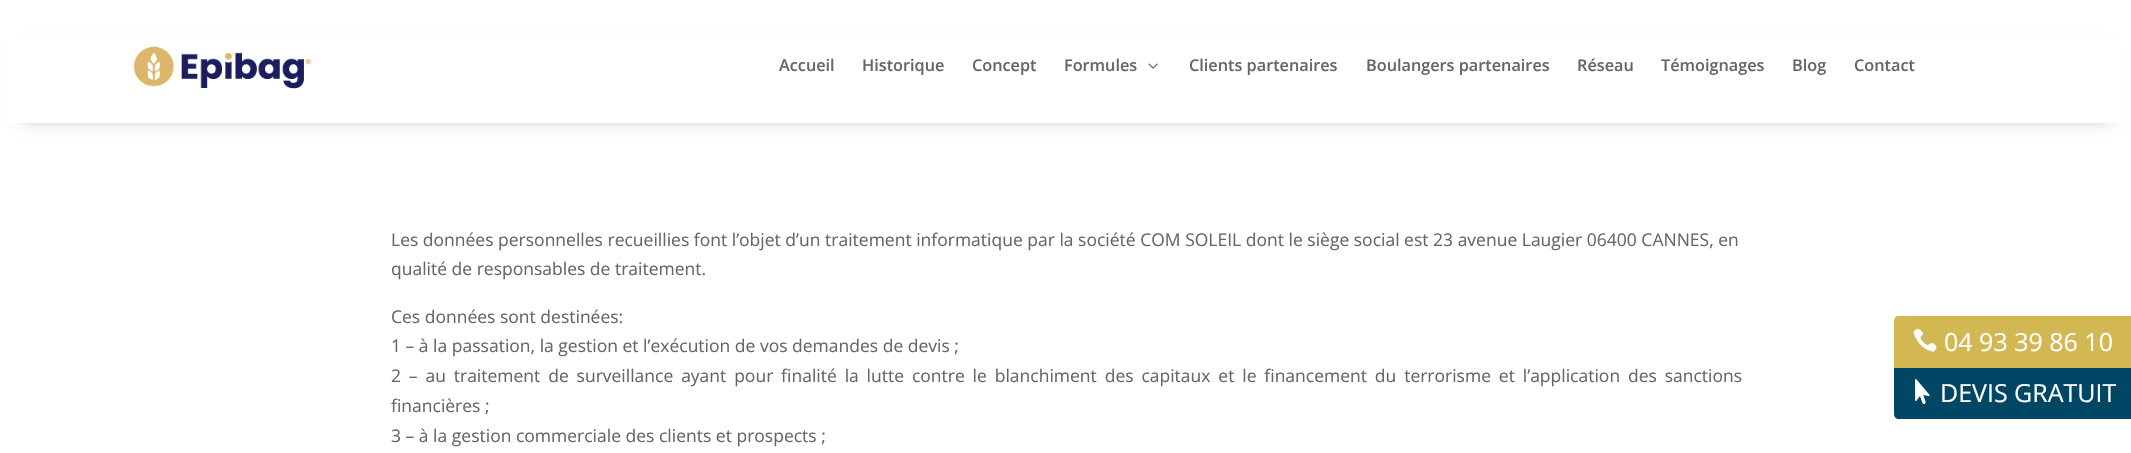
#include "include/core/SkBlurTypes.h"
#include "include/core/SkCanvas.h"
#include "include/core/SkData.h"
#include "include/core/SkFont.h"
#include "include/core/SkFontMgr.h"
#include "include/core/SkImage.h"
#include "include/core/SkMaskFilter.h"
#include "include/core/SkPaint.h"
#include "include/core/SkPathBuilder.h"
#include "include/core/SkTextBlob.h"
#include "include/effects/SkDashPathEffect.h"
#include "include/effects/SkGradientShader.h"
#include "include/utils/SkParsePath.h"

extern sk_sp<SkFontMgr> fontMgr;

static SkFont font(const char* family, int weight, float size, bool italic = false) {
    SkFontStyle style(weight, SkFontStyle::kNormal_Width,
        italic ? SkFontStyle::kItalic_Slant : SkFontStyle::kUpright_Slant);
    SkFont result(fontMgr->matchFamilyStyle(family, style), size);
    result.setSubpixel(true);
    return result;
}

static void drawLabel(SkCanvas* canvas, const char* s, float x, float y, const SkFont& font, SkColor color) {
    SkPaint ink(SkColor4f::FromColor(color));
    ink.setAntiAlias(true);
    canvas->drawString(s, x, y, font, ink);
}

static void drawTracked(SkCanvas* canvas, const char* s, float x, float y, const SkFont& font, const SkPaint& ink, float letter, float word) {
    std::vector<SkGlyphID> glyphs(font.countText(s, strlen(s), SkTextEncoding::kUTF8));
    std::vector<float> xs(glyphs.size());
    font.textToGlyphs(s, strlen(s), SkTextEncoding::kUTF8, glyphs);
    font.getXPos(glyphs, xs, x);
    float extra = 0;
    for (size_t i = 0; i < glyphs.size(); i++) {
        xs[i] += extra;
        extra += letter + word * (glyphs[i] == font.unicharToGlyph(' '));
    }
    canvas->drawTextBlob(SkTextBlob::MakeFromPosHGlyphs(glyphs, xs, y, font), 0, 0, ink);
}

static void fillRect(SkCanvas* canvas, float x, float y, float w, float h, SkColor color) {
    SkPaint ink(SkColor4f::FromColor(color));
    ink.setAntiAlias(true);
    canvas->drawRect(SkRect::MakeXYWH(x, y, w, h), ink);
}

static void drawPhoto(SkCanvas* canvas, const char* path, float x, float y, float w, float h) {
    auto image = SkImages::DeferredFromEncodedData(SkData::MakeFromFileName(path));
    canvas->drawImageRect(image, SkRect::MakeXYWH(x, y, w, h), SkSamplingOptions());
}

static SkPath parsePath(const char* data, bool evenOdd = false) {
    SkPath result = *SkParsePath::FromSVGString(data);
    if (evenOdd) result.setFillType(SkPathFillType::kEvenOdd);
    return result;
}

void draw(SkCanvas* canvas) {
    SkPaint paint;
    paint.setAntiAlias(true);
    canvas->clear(0xFFFFFFFF);
    paint.setColor(0x4D000000);
    paint.setMaskFilter(SkMaskFilter::MakeBlur(kNormal_SkBlurStyle, 8));
    canvas->drawRect(SkRect::MakeXYWH(23, 54, 2086, 65), paint);
    paint.setMaskFilter(nullptr);
    fillRect(canvas, 8, 39, 2116, 84, 0xFFFFFFFF);
    drawPhoto(canvas, "assets/img1.png", 133, 46, 179, 43);
    SkFont font1 = font("Open Sans", 600, 16.25f);
    drawLabel(canvas, "Accueil", 779, 71, font1, 0xFF666666);
    drawLabel(canvas, "Historique", 862, 71, font1, 0xFF666666);
    drawLabel(canvas, "Concept", 972, 71, font1, 0xFF666666);
    drawLabel(canvas, "Formules", 1064, 71, font1, 0xFF666666);
    drawPhoto(canvas, "assets/img2.png", 1148, 63, 10, 6);
    drawLabel(canvas, "Clients partenaires", 1189, 71, font1, 0xFF666666);
    drawLabel(canvas, "Boulangers partenaires", 1366, 71, font1, 0xFF666666);
    drawLabel(canvas, "Réseau", 1577, 71, font1, 0xFF666666);
    drawLabel(canvas, "Témoignages", 1661, 71, font1, 0xFF666666);
    drawLabel(canvas, "Blog", 1792, 71, font1, 0xFF666666);
    drawLabel(canvas, "Contact", 1854, 71, font1, 0xFF666666);
    SkFont font2 = font("Open Sans", 400, 17.5f);
    drawLabel(canvas, "Les données personnelles recueillies font l’objet d’un traitement informatique par la société COM SOLEIL dont le siège social est 23 avenue Laugier 06400 CANNES, en", 391, 246, font2, 0xFF666666);
    drawLabel(canvas, "qualité de responsables de traitement.", 391, 275, font2, 0xFF666666);
    drawLabel(canvas, "Ces données sont destinées:", 391, 323, font2, 0xFF666666);
    drawLabel(canvas, "1 – à la passation, la gestion et l’exécution de vos demandes de devis ;", 391, 352, font2, 0xFF666666);
    paint.setColor(0xFF666666);
    drawTracked(canvas, "2 – au traitement de surveillance ayant pour finalité la lutte contre le blanchiment des capitaux et le financement du terrorisme et l’application des sanctions", 391, 382, font2, paint, 0, 3.3f);
    drawLabel(canvas, "financières ;", 391, 412, font2, 0xFF666666);
    drawLabel(canvas, "3 – à la gestion commerciale des clients et prospects ;", 391, 442, font2, 0xFF666666);
    paint.setColor(0xFFD3B752);
    canvas->drawPath(parsePath("M1899 316H2131V368H1894V321C1894 318 1896 316 1899 316Z"), paint);
    drawPhoto(canvas, "assets/img3.png", 1913, 328, 24, 24);
    SkFont font3 = font("Open Sans", 400, 25);
    drawLabel(canvas, "04 93 39 86 10", 1944, 351, font3, 0xFFFFFFFF);
    paint.setColor(0xFF004765);
    canvas->drawPath(parsePath("M1894 368H2131V419H1899C1896 419 1894 417 1894 414Z"), paint);
    drawPhoto(canvas, "assets/img4.png", 1915, 379, 15, 25);
    drawLabel(canvas, "DEVIS GRATUIT", 1940, 402, font3, 0xFFFFFFFF);
}
